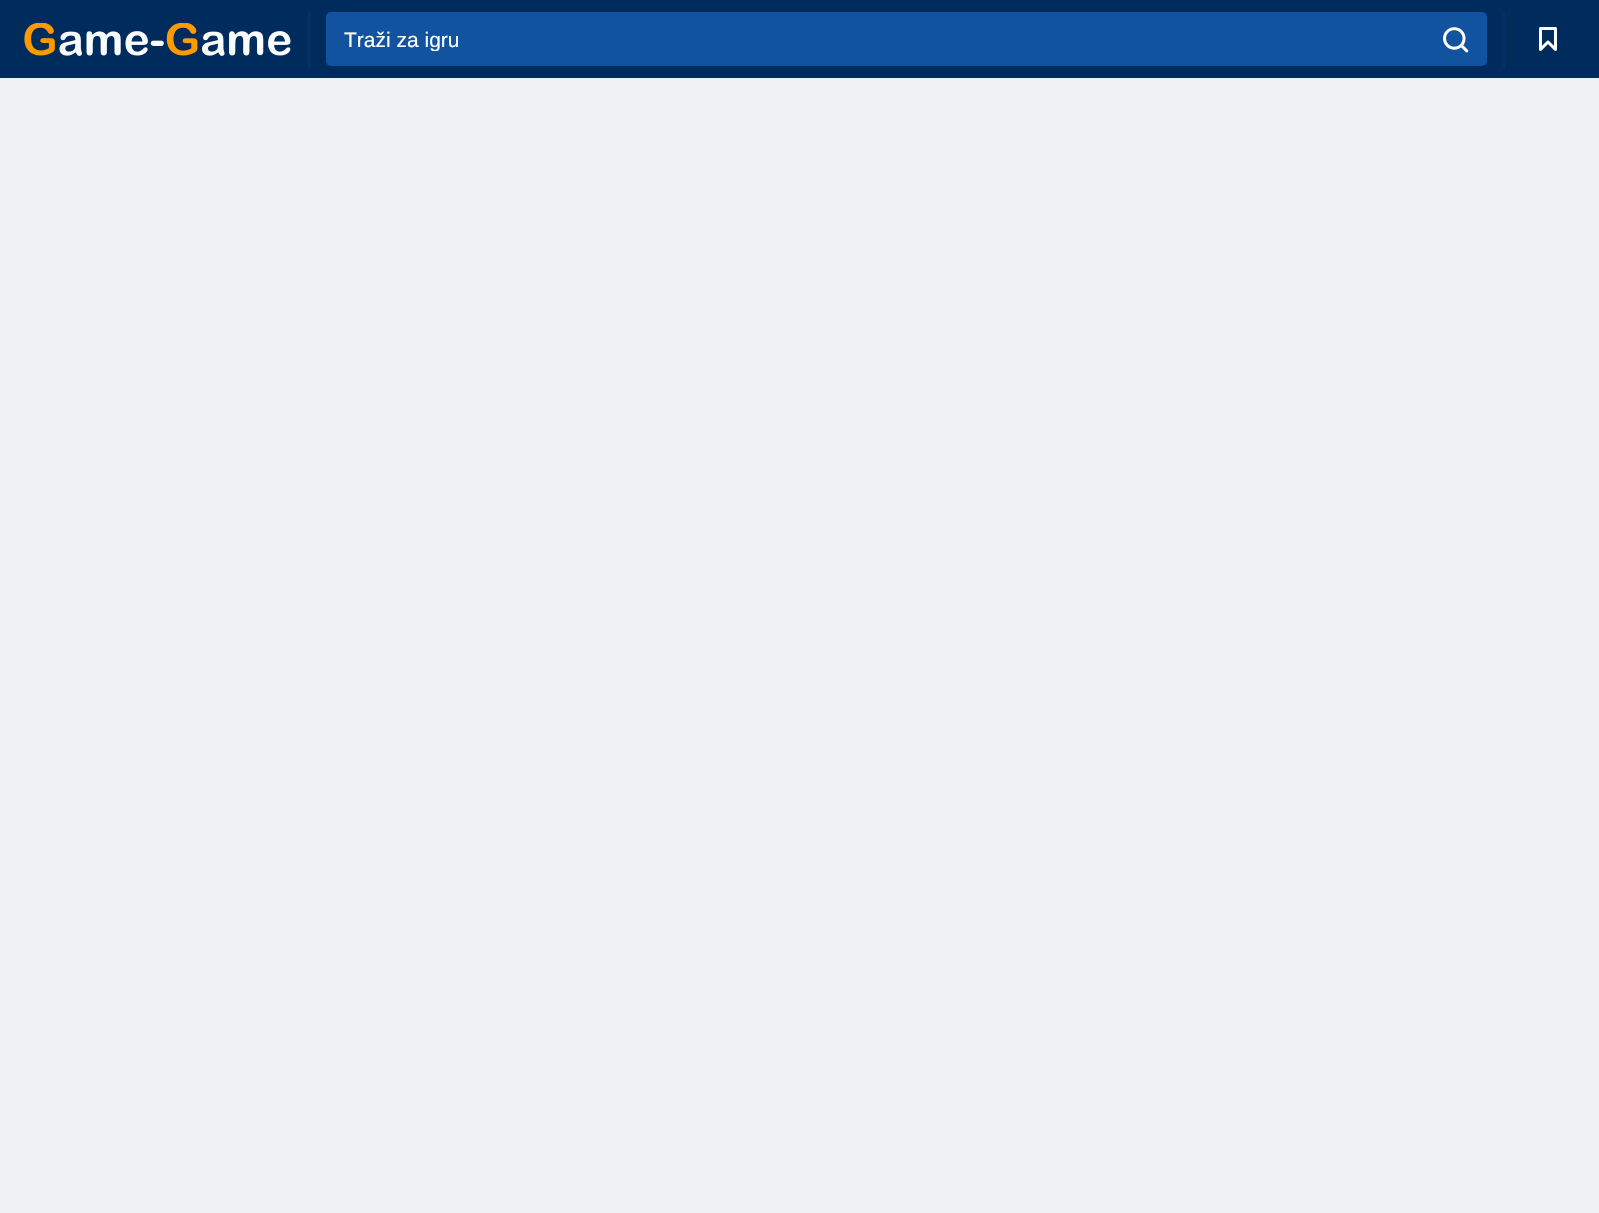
#include "include/core/SkBlurTypes.h"
#include "include/core/SkCanvas.h"
#include "include/core/SkData.h"
#include "include/core/SkFont.h"
#include "include/core/SkFontMgr.h"
#include "include/core/SkImage.h"
#include "include/core/SkMaskFilter.h"
#include "include/core/SkPaint.h"
#include "include/core/SkPathBuilder.h"
#include "include/core/SkTextBlob.h"
#include "include/effects/SkDashPathEffect.h"
#include "include/effects/SkGradientShader.h"
#include "include/utils/SkParsePath.h"

extern sk_sp<SkFontMgr> fontMgr;

static SkFont font(const char* family, int weight, float size, bool italic = false) {
    SkFontStyle style(weight, SkFontStyle::kNormal_Width,
        italic ? SkFontStyle::kItalic_Slant : SkFontStyle::kUpright_Slant);
    SkFont result(fontMgr->matchFamilyStyle(family, style), size);
    result.setSubpixel(true);
    return result;
}

static void drawLabel(SkCanvas* canvas, const char* s, float x, float y, const SkFont& font, SkColor color) {
    SkPaint ink(SkColor4f::FromColor(color));
    ink.setAntiAlias(true);
    canvas->drawString(s, x, y, font, ink);
}

static void fillRect(SkCanvas* canvas, float x, float y, float w, float h, SkColor color) {
    SkPaint ink(SkColor4f::FromColor(color));
    ink.setAntiAlias(true);
    canvas->drawRect(SkRect::MakeXYWH(x, y, w, h), ink);
}

static void fillRRect(SkCanvas* canvas, float x, float y, float w, float h, float radius, SkColor color) {
    SkPaint ink(SkColor4f::FromColor(color));
    ink.setAntiAlias(true);
    canvas->drawRoundRect(SkRect::MakeXYWH(x, y, w, h), radius, radius, ink);
}

static void drawPhoto(SkCanvas* canvas, const char* path, float x, float y, float w, float h) {
    auto image = SkImages::DeferredFromEncodedData(SkData::MakeFromFileName(path));
    canvas->drawImageRect(image, SkRect::MakeXYWH(x, y, w, h), SkSamplingOptions());
}

void draw(SkCanvas* canvas) {
    SkPaint paint;
    paint.setAntiAlias(true);
    canvas->clear(0xFFF0F1F3);
    fillRect(canvas, 0, 0, 1599, 78, 0xFF002B5D);
    drawPhoto(canvas, "assets/img1.png", 24, 23, 267, 33);
    fillRect(canvas, 308, 11, 2, 57, 0xFF00346E);
    fillRRect(canvas, 326, 12, 1161, 54, 5, 0xFF11539F);
    canvas->save();
    canvas->clipRect(SkRect::MakeXYWH(344, 27, 1125, 24));
    SkFont font1 = font("Liberation Sans", 400, 21);
    drawLabel(canvas, "Traži za igru", 344, 47, font1, 0xFFFFFFFF);
    canvas->restore();
    drawPhoto(canvas, "assets/img2.png", 1443, 27, 26, 26);
    fillRect(canvas, 1503, 11, 2, 57, 0xFF00346E);
    drawPhoto(canvas, "assets/img3.png", 1539, 27, 18, 24);
}
